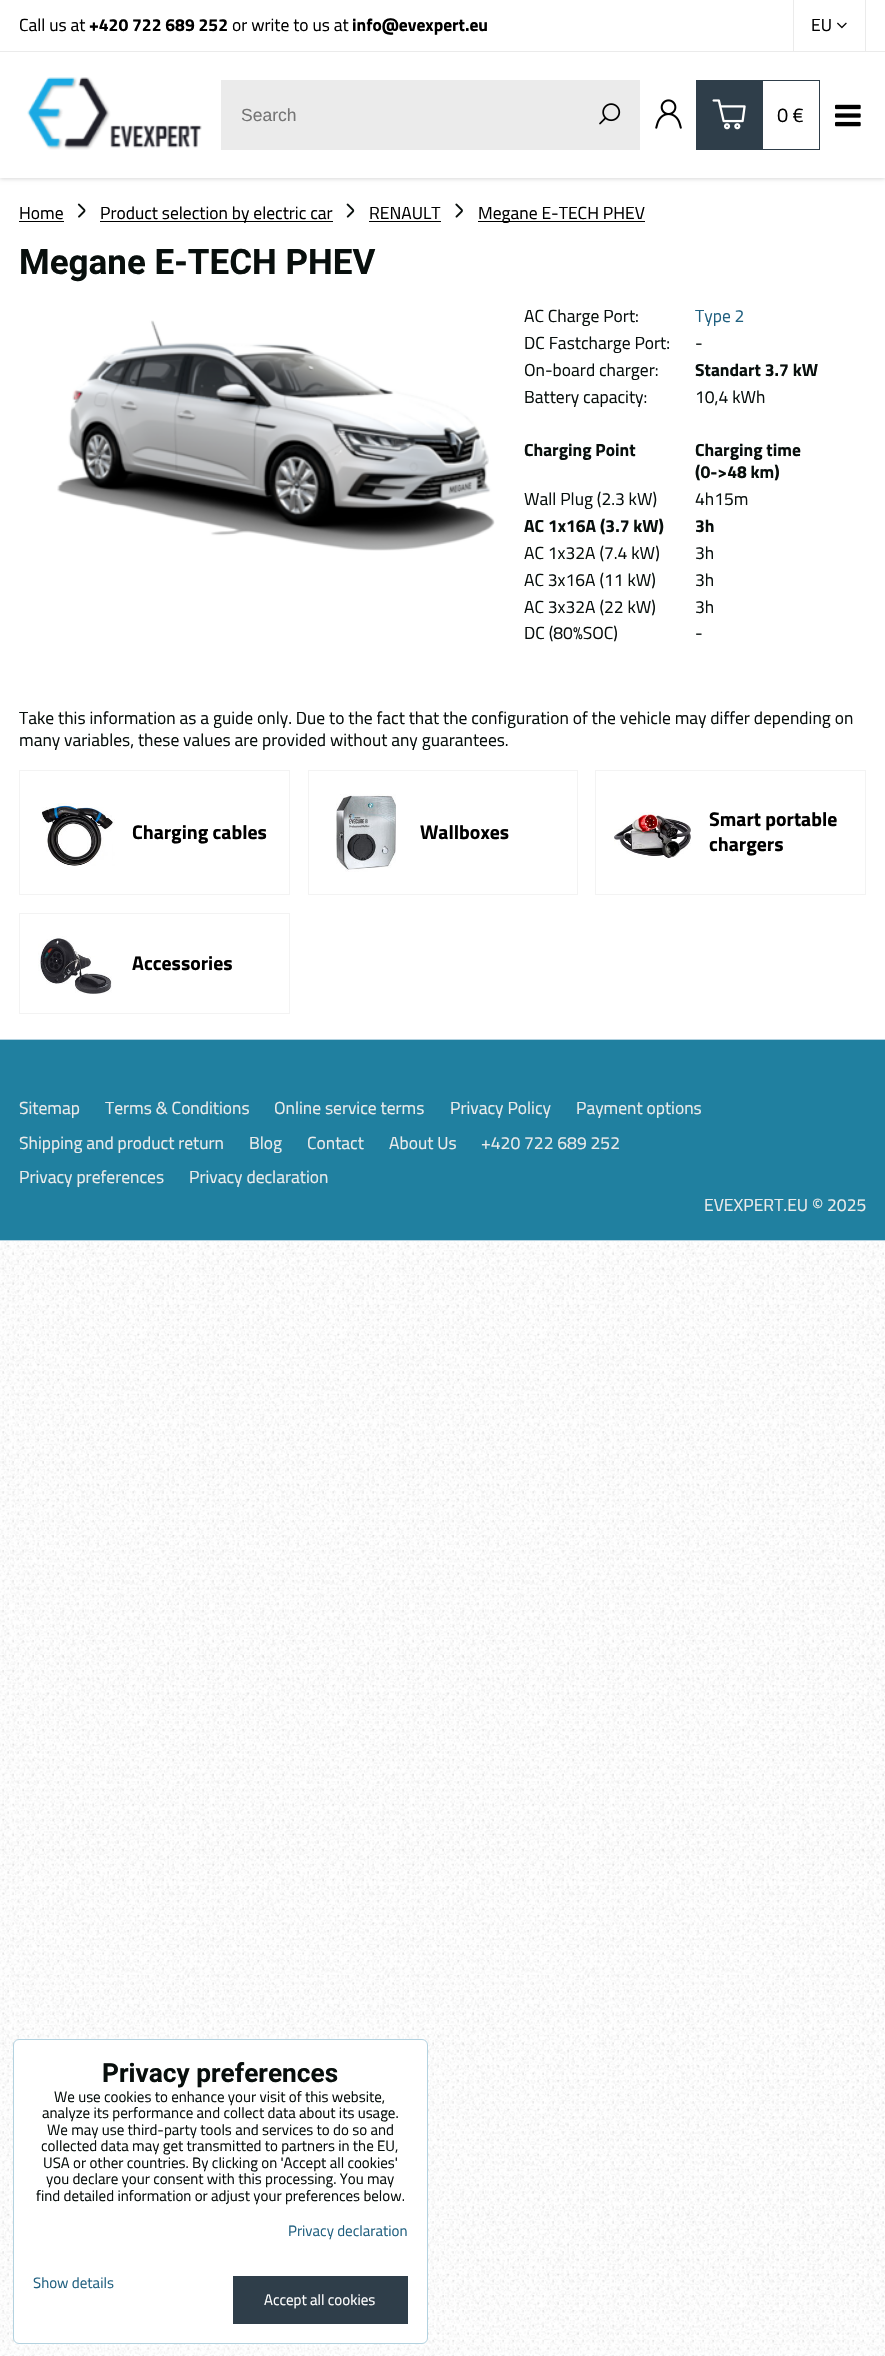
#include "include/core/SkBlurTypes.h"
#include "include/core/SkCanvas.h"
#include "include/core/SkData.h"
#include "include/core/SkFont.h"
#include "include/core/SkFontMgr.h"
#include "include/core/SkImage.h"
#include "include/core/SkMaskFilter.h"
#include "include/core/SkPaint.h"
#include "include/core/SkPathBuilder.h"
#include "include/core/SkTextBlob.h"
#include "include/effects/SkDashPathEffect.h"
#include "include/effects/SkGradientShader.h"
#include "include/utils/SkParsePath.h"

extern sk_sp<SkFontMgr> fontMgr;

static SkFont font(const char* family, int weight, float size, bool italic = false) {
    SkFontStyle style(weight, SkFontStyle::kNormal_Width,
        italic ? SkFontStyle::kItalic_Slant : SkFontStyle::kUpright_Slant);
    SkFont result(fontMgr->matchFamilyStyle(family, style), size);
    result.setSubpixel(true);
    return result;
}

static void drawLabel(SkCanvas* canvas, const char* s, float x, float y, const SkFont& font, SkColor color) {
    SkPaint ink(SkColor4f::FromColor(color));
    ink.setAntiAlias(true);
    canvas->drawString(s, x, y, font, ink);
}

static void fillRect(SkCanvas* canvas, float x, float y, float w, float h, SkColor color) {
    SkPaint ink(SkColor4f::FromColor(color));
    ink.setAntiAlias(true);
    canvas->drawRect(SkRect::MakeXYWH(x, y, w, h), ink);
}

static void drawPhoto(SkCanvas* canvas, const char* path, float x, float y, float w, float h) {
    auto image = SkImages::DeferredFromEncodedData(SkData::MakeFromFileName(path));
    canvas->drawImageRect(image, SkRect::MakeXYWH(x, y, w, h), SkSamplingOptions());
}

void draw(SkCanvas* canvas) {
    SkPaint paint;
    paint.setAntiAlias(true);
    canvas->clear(0xFFFFFFFF);
    drawPhoto(canvas, "assets/img1.png", 0, 1241, 885, 1115);
    paint.setColor(0x26000000);
    paint.setMaskFilter(SkMaskFilter::MakeBlur(kNormal_SkBlurStyle, 2));
    canvas->drawRect(SkRect::MakeXYWH(0, 1, 885, 178), paint);
    paint.setMaskFilter(nullptr);
    fillRect(canvas, 0, 0, 885, 178, 0xFFFFFFFF);
    fillRect(canvas, 0, 51, 885, 1, 0xFFEBEBEB);
    SkFont font1 = font("Titillium Web", 400, 17.5f);
    drawLabel(canvas, "Call us at", 19, 31, font1, 0xFF000000);
    SkFont font2 = font("Titillium Web", 700, 17.5f);
    drawLabel(canvas, "+420 722 689 252", 89, 31, font2, 0xFF000000);
    drawLabel(canvas, "or write to us at", 232, 31, font1, 0xFF000000);
    drawLabel(canvas, "info@evexpert.eu", 352, 31, font2, 0xFF000000);
    fillRect(canvas, 865, 0, 1, 51, 0xFFEBEBEB);
    fillRect(canvas, 793, 0, 1, 51, 0xFFEBEBEB);
    drawLabel(canvas, "EU", 811, 31, font1, 0xFF000000);
    drawPhoto(canvas, "assets/img2.png", 837, 22, 10, 7);
    drawPhoto(canvas, "assets/img3.png", 27, 77, 175, 73);
    fillRect(canvas, 221, 80, 419, 70, 0xFFEBEBEB);
    SkFont font3 = font("Liberation Sans", 400, 17.5f);
    drawLabel(canvas, "Search", 241, 121, font3, 0xFF757575);
    drawPhoto(canvas, "assets/img4.png", 599, 103, 22, 22);
    drawPhoto(canvas, "assets/img5.png", 655, 99, 27, 30);
    fillRect(canvas, 696, 80, 124, 70, 0xFF2F3E4A);
    drawPhoto(canvas, "assets/img6.png", 712, 99, 34, 31);
    fillRect(canvas, 763, 81, 56, 68, 0xFFFFFFFF);
    SkFont font4 = font("Titillium Web", 400, 20);
    drawLabel(canvas, "0 €", 777, 122, font4, 0xFF000000);
    drawPhoto(canvas, "assets/img7.png", 835, 104, 26, 23);
    drawLabel(canvas, "Home", 19, 219, font1, 0xFF000000);
    fillRect(canvas, 19, 221, 45, 1, 0xFF000000);
    drawPhoto(canvas, "assets/img8.png", 77, 203, 9, 15);
    fillRect(canvas, 100, 221, 233, 1, 0xFF000000);
    drawLabel(canvas, "Product selection by electric car", 100, 219, font1, 0xFF000000);
    drawPhoto(canvas, "assets/img9.png", 346, 203, 9, 15);
    drawLabel(canvas, "RENAULT", 369, 219, font1, 0xFF000000);
    fillRect(canvas, 369, 221, 72, 1, 0xFF000000);
    drawPhoto(canvas, "assets/img10.png", 455, 203, 8, 15);
    fillRect(canvas, 478, 221, 167, 1, 0xFF000000);
    drawLabel(canvas, "Megane E-TECH PHEV", 478, 219, font1, 0xFF000000);
    SkFont font5 = font("Roboto", 700, 35);
    drawLabel(canvas, "Megane E-TECH PHEV", 19, 274, font5, 0xFF080F0D);
    drawPhoto(canvas, "assets/img11.png", 57, 320, 438, 231);
    drawLabel(canvas, "AC Charge Port:", 524, 322, font1, 0xFF080F0D);
    drawLabel(canvas, "Type 2", 695, 322, font1, 0xFF206080);
    drawLabel(canvas, "DC Fastcharge Port:", 524, 349, font1, 0xFF080F0D);
    drawLabel(canvas, "-", 695, 349, font1, 0xFF080F0D);
    drawLabel(canvas, "On-board charger:", 524, 376, font1, 0xFF080F0D);
    drawLabel(canvas, "Standart 3.7 kW", 695, 376, font2, 0xFF080F0D);
    drawLabel(canvas, "Battery capacity:", 524, 403, font1, 0xFF080F0D);
    drawLabel(canvas, "10,4 kWh", 695, 403, font1, 0xFF080F0D);
    drawLabel(canvas, "Charging Point", 524, 456, font2, 0xFF080F0D);
    drawLabel(canvas, "Charging time", 695, 456, font2, 0xFF080F0D);
    drawLabel(canvas, "(0->48 km)", 695, 478, font2, 0xFF080F0D);
    drawLabel(canvas, "Wall Plug (2.3 kW)", 524, 505, font1, 0xFF080F0D);
    drawLabel(canvas, "4h15m", 695, 505, font1, 0xFF080F0D);
    drawLabel(canvas, "AC 1x16A (3.7 kW)", 524, 532, font2, 0xFF080F0D);
    drawLabel(canvas, "3h", 695, 532, font2, 0xFF080F0D);
    drawLabel(canvas, "AC 1x32A (7.4 kW)", 524, 559, font1, 0xFF080F0D);
    drawLabel(canvas, "3h", 695, 559, font1, 0xFF080F0D);
    drawLabel(canvas, "AC 3x16A (11 kW)", 524, 586, font1, 0xFF080F0D);
    drawLabel(canvas, "3h", 695, 586, font1, 0xFF080F0D);
    drawLabel(canvas, "AC 3x32A (22 kW)", 524, 613, font1, 0xFF080F0D);
    drawLabel(canvas, "3h", 695, 613, font1, 0xFF080F0D);
    drawLabel(canvas, "DC (80%SOC)", 524, 639, font1, 0xFF080F0D);
    drawLabel(canvas, "-", 695, 639, font1, 0xFF080F0D);
    drawLabel(canvas, "Take this information as a guide only. Due to the fact that the configuration of the vehicle may differ depending on", 19, 724, font1, 0xFF080F0D);
    drawLabel(canvas, "many variables, these values are provided without any guarantees.", 19, 746, font1, 0xFF080F0D);
    paint.setStroke(true);
    paint.setStrokeWidth(1);
    paint.setColor(0xFFF3F3F3);
    canvas->drawRect(SkRect::MakeXYWH(19.5f, 770.5f, 270, 124), paint);
    drawPhoto(canvas, "assets/img12.png", 41, 803, 74, 63);
    SkFont font6 = font("Titillium Web", 700, 19.75f);
    drawLabel(canvas, "Charging cables", 132, 839, font6, 0xFF000000);
    canvas->drawRect(SkRect::MakeXYWH(308.5f, 770.5f, 269, 124), paint);
    drawPhoto(canvas, "assets/img13.png", 336, 794, 60, 78);
    drawLabel(canvas, "Wallboxes", 420, 839, font6, 0xFF000000);
    canvas->drawRect(SkRect::MakeXYWH(595.5f, 770.5f, 270, 124), paint);
    drawPhoto(canvas, "assets/img14.png", 614, 812, 77, 47);
    drawLabel(canvas, "Smart portable", 709, 826, font6, 0xFF000000);
    drawLabel(canvas, "chargers", 709, 851, font6, 0xFF000000);
    canvas->drawRect(SkRect::MakeXYWH(19.5f, 913.5f, 270, 100), paint);
    drawPhoto(canvas, "assets/img15.png", 38, 936, 74, 58);
    drawLabel(canvas, "Accessories", 132, 970, font6, 0xFF000000);
    fillRect(canvas, 0, 1040, 885, 200, 0xFF2080A0);
    fillRect(canvas, 0, 1039, 885, 1, 0xFFB3D2E0);
    fillRect(canvas, 0, 1240, 885, 1, 0xFFB3D2E0);
    drawLabel(canvas, "Sitemap", 19, 1114, font1, 0xFFEBEBEB);
    drawLabel(canvas, "Terms & Conditions", 105, 1114, font1, 0xFFEBEBEB);
    drawLabel(canvas, "Online service terms", 274, 1114, font1, 0xFFEBEBEB);
    drawLabel(canvas, "Privacy Policy", 450, 1114, font1, 0xFFEBEBEB);
    drawLabel(canvas, "Payment options", 576, 1114, font1, 0xFFEBEBEB);
    drawLabel(canvas, "Shipping and product return", 19, 1149, font1, 0xFFEBEBEB);
    drawLabel(canvas, "Blog", 249, 1149, font1, 0xFFEBEBEB);
    drawLabel(canvas, "Contact", 307, 1149, font1, 0xFFEBEBEB);
    drawLabel(canvas, "About Us", 389, 1149, font1, 0xFFEBEBEB);
    drawLabel(canvas, "+420 722 689 252", 481, 1149, font1, 0xFFEBEBEB);
    drawLabel(canvas, "Privacy preferences", 19, 1183, font1, 0xFFEBEBEB);
    drawLabel(canvas, "Privacy declaration", 189, 1183, font1, 0xFFEBEBEB);
    drawLabel(canvas, "EVEXPERT.EU © 2025", 704, 1211, font1, 0xFFEBEBEB);
    paint.setStroke(false);
    paint.setColor(0xFFFFFFFF);
    canvas->drawRoundRect(SkRect::MakeXYWH(13.5f, 2039.5f, 414, 304), 5.5f, 5.5f, paint);
    paint.setStroke(true);
    paint.setColor(0xFFB3D2E0);
    canvas->drawRoundRect(SkRect::MakeXYWH(13.5f, 2039.5f, 414, 304), 5.5f, 5.5f, paint);
    SkFont font7 = font("Roboto", 700, 26.25f);
    drawLabel(canvas, "Privacy preferences", 102, 2082, font7, 0xFF080F0D);
    SkFont font8 = font("Titillium Web", 400, 15);
    drawLabel(canvas, "We use cookies to enhance your visit of this website,", 54, 2102, font8, 0xFF080F0D);
    drawLabel(canvas, "analyze its performance and collect data about its usage.", 42, 2118, font8, 0xFF080F0D);
    drawLabel(canvas, "We may use third-party tools and services to do so and", 47, 2135, font8, 0xFF080F0D);
    drawLabel(canvas, "collected data may get transmitted to partners in the EU,", 41, 2151, font8, 0xFF080F0D);
    drawLabel(canvas, "USA or other countries. By clicking on 'Accept all cookies'", 43, 2168, font8, 0xFF080F0D);
    drawLabel(canvas, "you declare your consent with this processing. You may", 46, 2184, font8, 0xFF080F0D);
    drawLabel(canvas, "find detailed information or adjust your preferences below.", 36, 2201, font8, 0xFF080F0D);
    drawLabel(canvas, "Privacy declaration", 288, 2236, font8, 0xFF206080);
    drawLabel(canvas, "Show details", 33, 2288, font8, 0xFF206080);
    fillRect(canvas, 233, 2276, 175, 48, 0xFF2F3E4A);
    drawLabel(canvas, "Accept all cookies", 264, 2305, font8, 0xFFFFFFFF);
}
